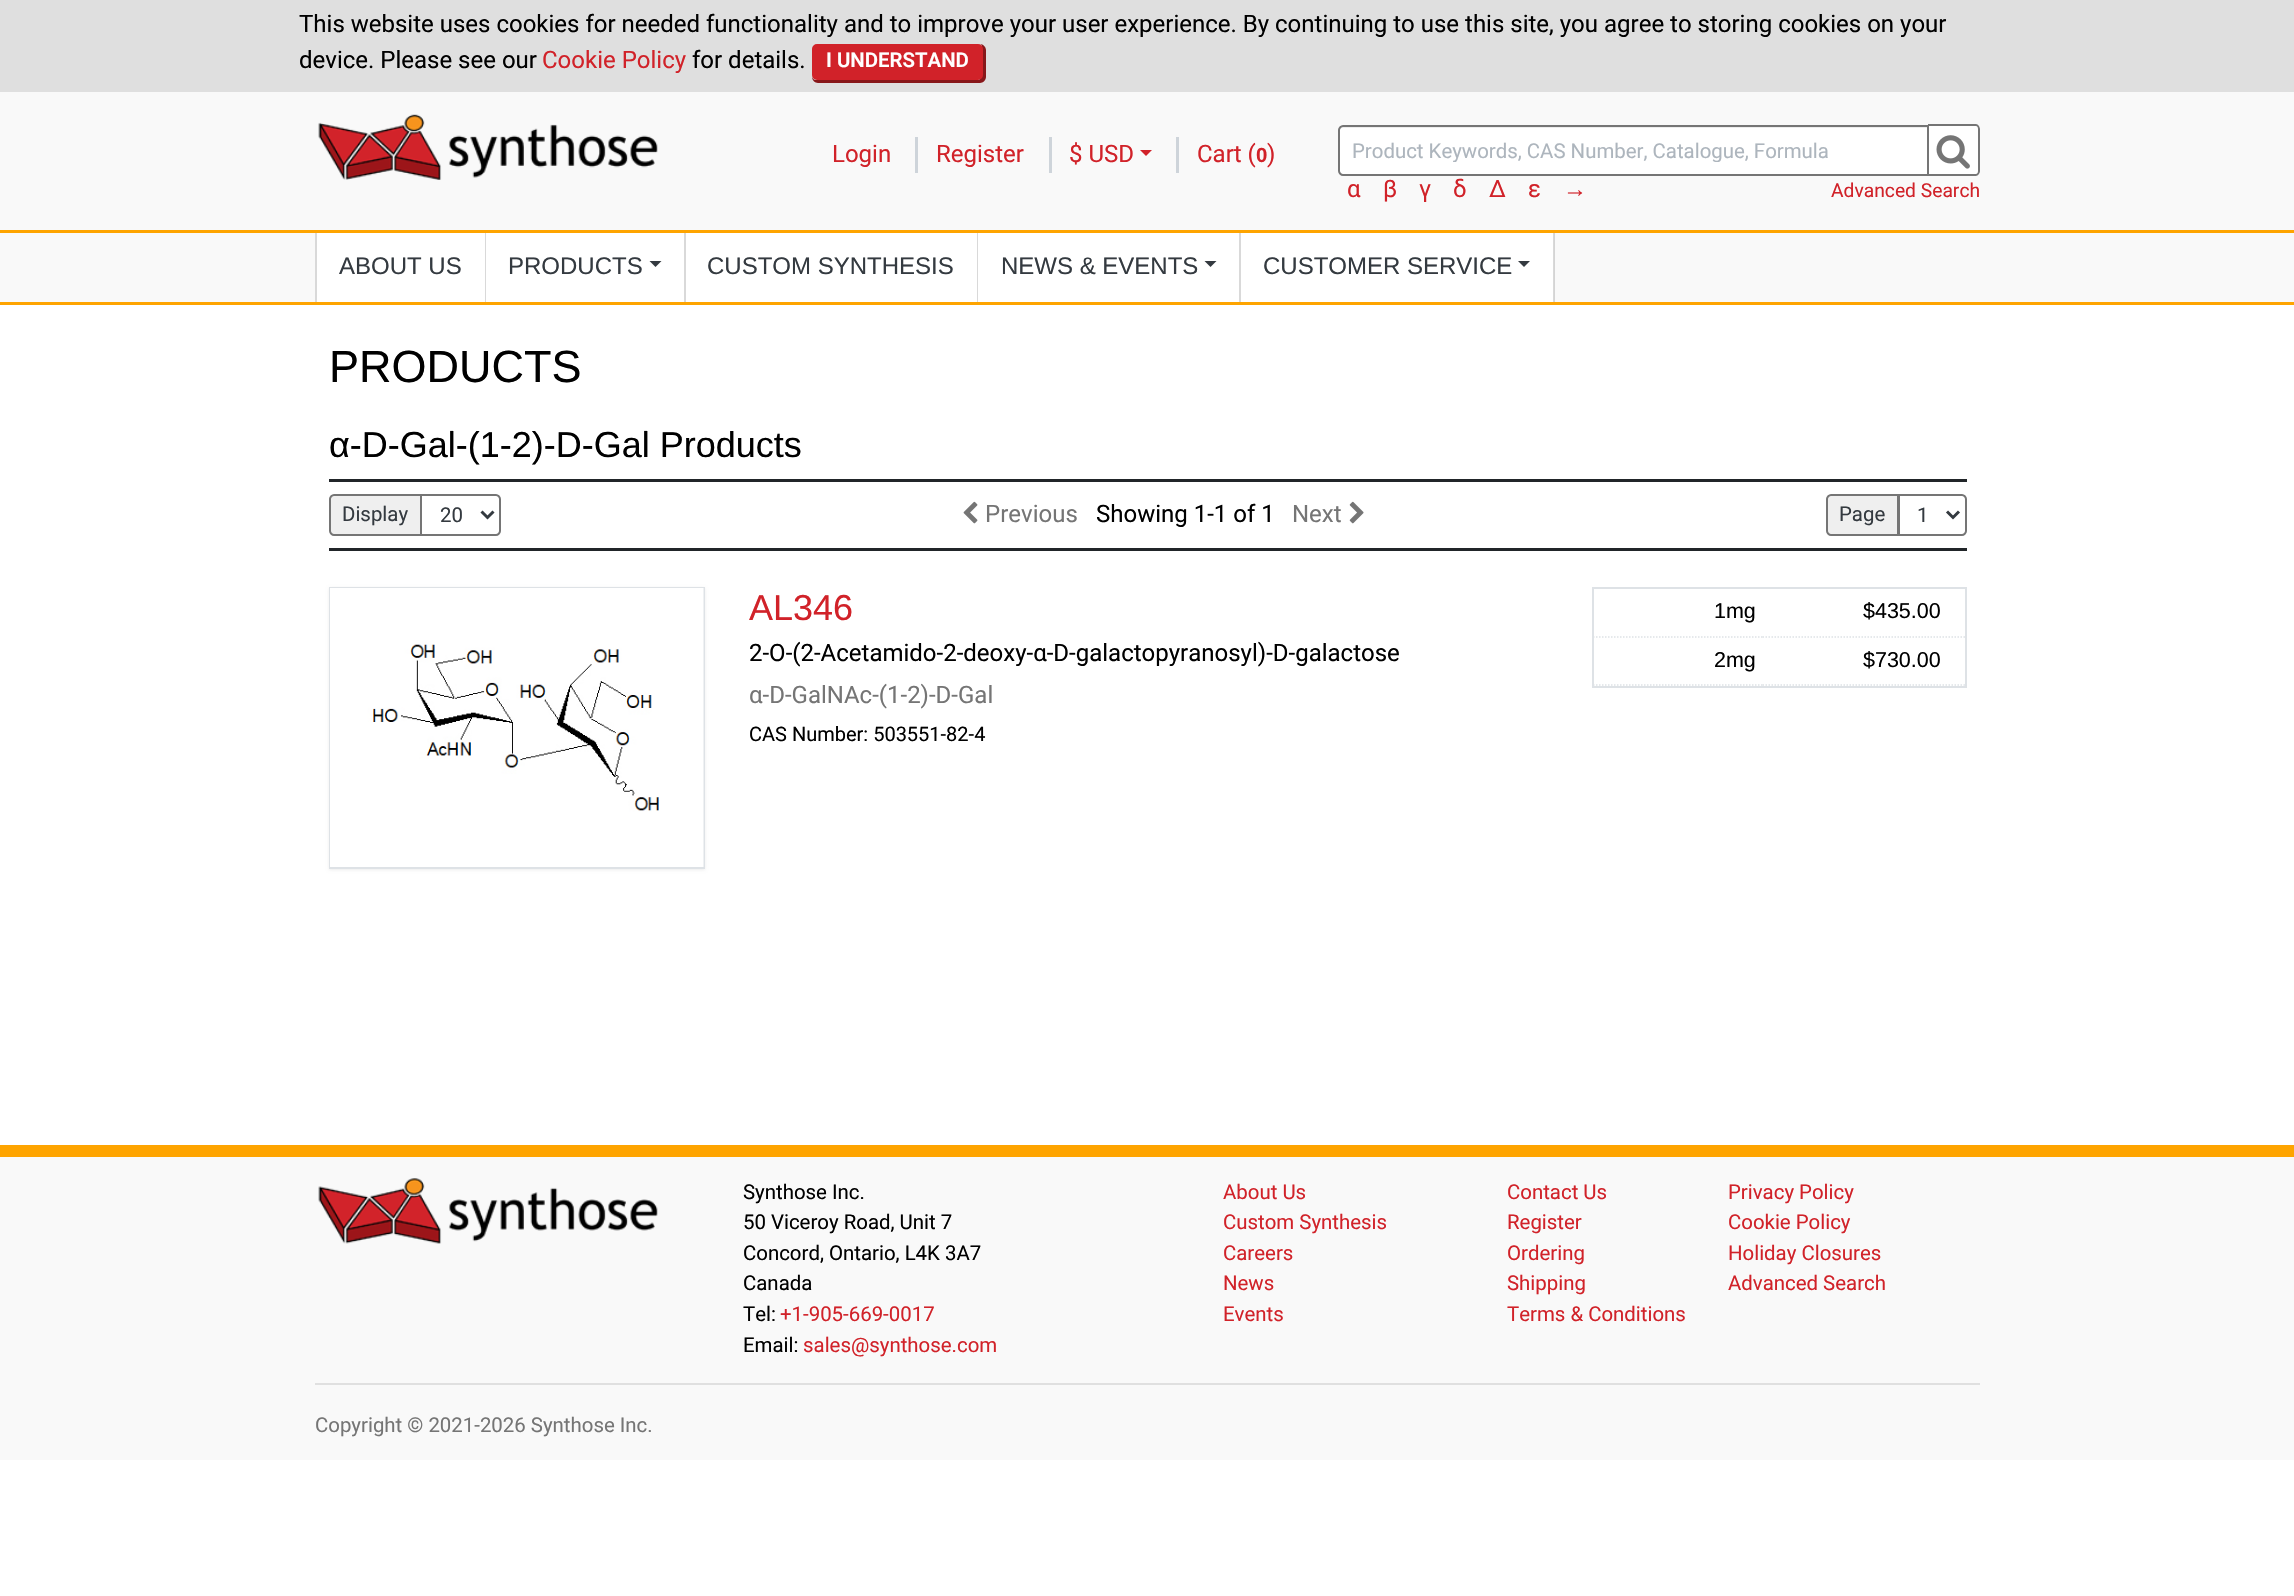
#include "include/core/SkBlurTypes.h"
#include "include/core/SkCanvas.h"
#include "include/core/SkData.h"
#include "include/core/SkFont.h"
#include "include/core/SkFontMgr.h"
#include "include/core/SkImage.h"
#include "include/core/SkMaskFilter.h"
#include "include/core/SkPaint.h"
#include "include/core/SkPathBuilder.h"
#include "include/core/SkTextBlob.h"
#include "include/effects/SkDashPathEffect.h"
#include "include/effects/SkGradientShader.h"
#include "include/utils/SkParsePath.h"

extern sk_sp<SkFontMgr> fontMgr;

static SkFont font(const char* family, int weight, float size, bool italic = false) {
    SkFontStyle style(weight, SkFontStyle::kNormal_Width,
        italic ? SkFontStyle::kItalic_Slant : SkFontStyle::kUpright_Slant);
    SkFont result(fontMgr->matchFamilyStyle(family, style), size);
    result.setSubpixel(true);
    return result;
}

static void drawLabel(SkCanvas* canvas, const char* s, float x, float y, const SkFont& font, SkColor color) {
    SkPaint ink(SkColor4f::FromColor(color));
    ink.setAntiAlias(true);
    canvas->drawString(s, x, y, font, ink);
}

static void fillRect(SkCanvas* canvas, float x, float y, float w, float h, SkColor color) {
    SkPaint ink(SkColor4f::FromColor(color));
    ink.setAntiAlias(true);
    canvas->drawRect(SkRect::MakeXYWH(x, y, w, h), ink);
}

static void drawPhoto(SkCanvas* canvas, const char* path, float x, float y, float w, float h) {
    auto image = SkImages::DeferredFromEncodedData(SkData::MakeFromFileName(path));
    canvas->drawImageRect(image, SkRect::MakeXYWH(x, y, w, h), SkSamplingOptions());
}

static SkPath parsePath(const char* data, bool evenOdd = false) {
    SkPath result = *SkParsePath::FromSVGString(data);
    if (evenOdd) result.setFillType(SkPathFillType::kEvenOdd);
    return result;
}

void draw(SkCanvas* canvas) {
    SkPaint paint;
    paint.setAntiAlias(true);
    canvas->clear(0xFFFFFFFF);
    fillRect(canvas, 0, 92, 2294, 210, 0xFFF9F9F9);
    fillRect(canvas, 1554, 233, 1, 69, 0xFFD4D4D4);
    fillRect(canvas, 0, 0, 2294, 92, 0xFFDFDFDF);
    SkFont font1 = font("Roboto", 400, 24);
    drawLabel(canvas, "This website uses cookies for needed functionality and to improve your user experience. By continuing to use this site, you agree to storing cookies on your", 299, 32, font1, 0xFF000000);
    drawLabel(canvas, "device. Please see our", 299, 68, font1, 0xFF000000);
    drawLabel(canvas, "Cookie Policy", 542, 68, font1, 0xFFD12229);
    drawLabel(canvas, "for details.", 692, 68, font1, 0xFF000000);
    paint.setColor(0xFF88171A);
    canvas->drawPath(parsePath("M812 77C812 80 815 83 818 83H980C983 83 986 80 986 77V50C986 47 983 44 980 44C982 45 982 46 982 48V75C982 77 980 80 978 80H816C814 80 813 79 812 77Z"), paint);
    paint.setColor(0xFFD12229);
    canvas->drawRoundRect(SkRect::MakeXYWH(813, 45, 169, 34), 4, 4, paint);
    paint.setStroke(true);
    paint.setStrokeWidth(2);
    canvas->drawRoundRect(SkRect::MakeXYWH(813, 45, 169, 34), 4, 4, paint);
    SkFont font2 = font("Roboto", 600, 20.4f);
    drawLabel(canvas, "I UNDERSTAND", 826, 67, font2, 0xFFFFFFFF);
    drawPhoto(canvas, "assets/img1.png", 318, 114, 340, 66);
    drawLabel(canvas, "Login", 832, 162, font1, 0xFFD12229);
    fillRect(canvas, 915, 137, 3, 36, 0xFFCED4DA);
    drawLabel(canvas, "Register", 936, 162, font1, 0xFFD12229);
    fillRect(canvas, 1049, 137, 3, 36, 0xFFCED4DA);
    drawLabel(canvas, "$ USD", 1069, 162, font1, 0xFFD12229);
    paint.setStroke(false);
    canvas->drawPath(parsePath("M1140 150H1152L1146 156Z"), paint);
    fillRect(canvas, 1176, 137, 3, 36, 0xFFCED4DA);
    drawLabel(canvas, "Cart (", 1197, 162, font1, 0xFFD12229);
    SkFont font3 = font("Liberation Sans", 700, 20.4f);
    drawLabel(canvas, "0", 1256, 162, font3, 0xFFD12229);
    drawLabel(canvas, ")", 1267, 162, font1, 0xFFD12229);
    paint.setColor(0xFFFFFFFF);
    canvas->drawPath(parsePath("M1343 126H1928V174H1343C1341.5 174 1340 172.5 1340 171V129C1340 127.5 1341.5 126 1343 126Z"), paint);
    paint.setColor(0x12000000);
    canvas->drawPath(parsePath("M1342 128H1928V126H1343C1341 126 1340 127 1340 129V130C1340 129 1341 128 1342 128Z"), paint);
    paint.setColor(0xFFFFFFFF);
    canvas->drawPath(parsePath("M1928 125H1975C1978 125 1980 127 1980 130V171C1980 174 1978 176 1975 176H1928Z"), paint);
    paint.setColor(0xFF757575);
    canvas->drawPath(parsePath("M1928 124H1976C1978 124 1980 127 1980 129V171C1980 173 1978 176 1976 176H1928ZM1928 126H1976C1977 126 1978 127 1978 129V171C1978 173 1977 174 1976 174H1928Z", true), paint);
    paint.setStroke(true);
    canvas->drawPath(parsePath("M1343 126H1928V175H1343C1341 175 1339 173 1339 171V130C1339 128 1341 126 1343 126Z"), paint);
    canvas->save();
    canvas->clipRect(SkRect::MakeXYWH(1352, 138, 564, 24));
    SkFont font4 = font("Roboto", 400, 20.4f);
    drawLabel(canvas, "Product Keywords, CAS Number, Catalogue, Formula", 1352, 158, font4, 0xFFADB5BD);
    canvas->restore();
    drawPhoto(canvas, "assets/img2.png", 1936, 135, 34, 34);
    drawLabel(canvas, "α", 1347, 197, font1, 0xFFD12229);
    drawLabel(canvas, "β", 1383, 197, font1, 0xFFD12229);
    drawLabel(canvas, "γ", 1419, 197, font1, 0xFFD12229);
    drawLabel(canvas, "δ", 1453, 197, font1, 0xFFD12229);
    drawLabel(canvas, "∆", 1489, 197, font1, 0xFFD12229);
    drawLabel(canvas, "ε", 1528, 197, font1, 0xFFD12229);
    SkFont font5 = font("Liberation Sans", 400, 24);
    drawLabel(canvas, "→", 1563, 197, font5, 0xFFD12229);
    SkFont font6 = font("Roboto", 400, 19.25f);
    drawLabel(canvas, "Advanced Search", 1831, 197, font6, 0xFFD12229);
    fillRect(canvas, 0, 230, 2294, 3, 0xFFFEA400);
    fillRect(canvas, 0, 302, 2294, 3, 0xFFFEA400);
    fillRect(canvas, 317, 233, 168, 69, 0xFFFFFFFF);
    fillRect(canvas, 485, 233, 1, 69, 0xFFD9D9D9);
    fillRect(canvas, 315, 233, 2, 69, 0xFFD9D9D9);
    drawLabel(canvas, "ABOUT US", 339, 274, font5, 0xFF343A40);
    fillRect(canvas, 486, 233, 198, 69, 0xFFFFFFFF);
    fillRect(canvas, 684, 233, 2, 69, 0xFFD9D9D9);
    drawLabel(canvas, "PRODUCTS", 508, 274, font5, 0xFF343A40);
    paint.setStroke(false);
    paint.setColor(0xFF343A40);
    canvas->drawPath(parsePath("M649.5 261H661.5L655.5 267Z"), paint);
    fillRect(canvas, 686, 233, 291, 69, 0xFFFFFFFF);
    fillRect(canvas, 977, 233, 1, 69, 0xFFD9D9D9);
    drawLabel(canvas, "CUSTOM SYNTHESIS", 707, 274, font5, 0xFF343A40);
    fillRect(canvas, 978, 233, 261, 69, 0xFFFFFFFF);
    fillRect(canvas, 1239, 233, 2, 69, 0xFFD9D9D9);
    drawLabel(canvas, "NEWS & EVENTS", 1001, 274, font5, 0xFF343A40);
    canvas->drawPath(parsePath("M1204.5 261H1216.5L1210.5 267Z"), paint);
    fillRect(canvas, 1241, 233, 312, 69, 0xFFFFFFFF);
    fillRect(canvas, 1553, 233, 1, 69, 0xFFD9D9D9);
    drawLabel(canvas, "CUSTOMER SERVICE", 1263, 274, font5, 0xFF343A40);
    canvas->drawPath(parsePath("M1518 261H1530L1524 267Z"), paint);
    SkFont font7 = font("Liberation Sans", 400, 45);
    drawLabel(canvas, "PRODUCTS", 329, 382, font7, 0xFF000000);
    SkFont font8 = font("Liberation Sans", 400, 36);
    drawLabel(canvas, "α-D-Gal-(1-2)-D-Gal Products", 329, 457, font8, 0xFF000000);
    fillRect(canvas, 329, 479, 1638, 3, 0xFF212529);
    fillRect(canvas, 329, 548, 1638, 3, 0xFF212529);
    paint.setColor(0xFFEFEFEF);
    canvas->drawPath(parsePath("M334 495H421V535H334C332 535 330 533 330 531V499C330 497 332 495 334 495Z"), paint);
    paint.setStroke(true);
    paint.setColor(0xFF757575);
    canvas->drawPath(parsePath("M334 495H421V535H334C332 535 330 533 330 531V499C330 497 332 495 334 495Z"), paint);
    drawLabel(canvas, "Display", 342, 521, font4, 0xFF343A40);
    canvas->drawPath(parsePath("M421 495H496C498 495 500 497 500 499V531C500 533 498 535 496 535H421Z"), paint);
    paint.setStrokeWidth(3);
    paint.setColor(0xFF343A40);
    canvas->drawPath(parsePath("M481.5 511.5L487.5 517.5L493.5 511.5"), paint);
    drawLabel(canvas, "20", 440, 522, font4, 0xFF343A40);
    drawPhoto(canvas, "assets/img3.png", 963, 501, 15, 23);
    drawLabel(canvas, "Previous", 985, 522, font1, 0xFF757575);
    drawLabel(canvas, "Showing 1-1 of 1", 1096, 522, font1, 0xFF000000);
    drawLabel(canvas, "Next", 1292, 522, font1, 0xFF757575);
    drawPhoto(canvas, "assets/img4.png", 1349, 501, 15, 23);
    paint.setStroke(false);
    paint.setColor(0xFFEFEFEF);
    canvas->drawPath(parsePath("M1831 495H1898V535H1831C1829 535 1827 533 1827 531V499C1827 497 1829 495 1831 495Z"), paint);
    paint.setStroke(true);
    paint.setStrokeWidth(2);
    paint.setColor(0xFF757575);
    canvas->drawPath(parsePath("M1831 495H1898V535H1831C1829 535 1827 533 1827 531V499C1827 497 1829 495 1831 495Z"), paint);
    drawLabel(canvas, "Page", 1839, 521, font4, 0xFF343A40);
    paint.setStroke(false);
    paint.setColor(0xFFECECEC);
    canvas->drawPath(parsePath("M1899 496H1962C1964 496 1965 498 1965 500V498C1965 496 1964 495 1962 495H1899Z"), paint);
    paint.setStroke(true);
    paint.setColor(0xFF757575);
    canvas->drawPath(parsePath("M1899 495H1962C1964 495 1966 497 1966 499V531C1966 533 1964 535 1962 535H1899Z"), paint);
    paint.setStrokeWidth(3);
    paint.setColor(0xFF343A40);
    canvas->drawPath(parsePath("M1947 511.5L1953 517.5L1959 511.5"), paint);
    drawLabel(canvas, "1", 1917, 522, font4, 0xFF343A40);
    paint.setStroke(false);
    paint.setColor(0x12000000);
    paint.setMaskFilter(SkMaskFilter::MakeBlur(kNormal_SkBlurStyle, 1.5f));
    canvas->drawRect(SkRect::MakeXYWH(329, 588, 376, 282), paint);
    paint.setMaskFilter(nullptr);
    paint.setStroke(true);
    paint.setStrokeWidth(2);
    paint.setColor(0xFFDEE2E6);
    canvas->drawRect(SkRect::MakeXYWH(330, 588, 374, 280), paint);
    drawPhoto(canvas, "assets/img5.png", 330, 588, 374, 279);
    drawLabel(canvas, "AL346", 749, 620, font8, 0xFFD12229);
    drawLabel(canvas, "2-O-(2-Acetamido-2-deoxy-α-D-galactopyranosyl)-D-galactose", 749, 661, font1, 0xFF000000);
    drawLabel(canvas, "α-D-GalNAc-(1-2)-D-Gal", 749, 703, font1, 0xFF757575);
    SkFont font9 = font("Roboto", 400, 20);
    drawLabel(canvas, "CAS Number: 503551-82-4", 749, 741, font9, 0xFF000000);
    fillRect(canvas, 1592, 587, 375, 2, 0xFFDEE2E6);
    fillRect(canvas, 1965, 587, 2, 100, 0xFFDEE2E6);
    fillRect(canvas, 1592, 686, 375, 2, 0xFFDEE2E6);
    fillRect(canvas, 1592, 587, 2, 100, 0xFFDEE2E6);
    paint.setStrokeWidth(1.5f);
    paint.setPathEffect(SkDashPathEffect::Make({{1.5f, 1.5f}}, 0));
    canvas->drawPath(parsePath("M1593 637H1762.5"), paint);
    paint.setPathEffect(nullptr);
    SkFont font10 = font("Liberation Sans", 400, 21.5f);
    drawLabel(canvas, "1mg", 1714, 618, font10, 0xFF000000);
    paint.setPathEffect(SkDashPathEffect::Make({{1.5f, 1.5f}}, 0));
    canvas->drawPath(parsePath("M1762.5 637H1965"), paint);
    paint.setPathEffect(nullptr);
    drawLabel(canvas, "$435.00", 1863, 618, font10, 0xFF000000);
    paint.setPathEffect(SkDashPathEffect::Make({{1.5f, 1.5f}}, 0));
    canvas->drawPath(parsePath("M1593 685H1762.5"), paint);
    paint.setPathEffect(nullptr);
    drawLabel(canvas, "2mg", 1714, 667, font10, 0xFF000000);
    paint.setPathEffect(SkDashPathEffect::Make({{1.5f, 1.5f}}, 0));
    canvas->drawPath(parsePath("M1762.5 685H1965"), paint);
    paint.setPathEffect(nullptr);
    drawLabel(canvas, "$730.00", 1863, 667, font10, 0xFF000000);
    fillRect(canvas, 0, 1157, 2294, 303, 0xFFF9F9F9);
    fillRect(canvas, 0, 1145, 2294, 12, 0xFFFEA400);
    drawPhoto(canvas, "assets/img6.png", 318, 1178, 340, 66);
    drawLabel(canvas, "Synthose Inc.", 743, 1199, font4, 0xFF000000);
    drawLabel(canvas, "50 Viceroy Road, Unit 7", 743, 1229, font4, 0xFF000000);
    drawLabel(canvas, "Concord, Ontario, L4K 3A7", 743, 1260, font4, 0xFF000000);
    drawLabel(canvas, "Canada", 743, 1290, font4, 0xFF000000);
    drawLabel(canvas, "Tel:", 743, 1321, font4, 0xFF000000);
    drawLabel(canvas, "+1-905-669-0017", 780, 1321, font4, 0xFFD12229);
    drawLabel(canvas, "Email:", 743, 1352, font4, 0xFF000000);
    drawLabel(canvas, "sales@synthose.com", 803, 1352, font4, 0xFFD12229);
    drawLabel(canvas, "About Us", 1223, 1199, font4, 0xFFD12229);
    drawLabel(canvas, "Custom Synthesis", 1223, 1229, font4, 0xFFD12229);
    drawLabel(canvas, "Careers", 1223, 1260, font4, 0xFFD12229);
    drawLabel(canvas, "News", 1223, 1290, font4, 0xFFD12229);
    drawLabel(canvas, "Events", 1223, 1321, font4, 0xFFD12229);
    drawLabel(canvas, "Contact Us", 1507, 1199, font4, 0xFFD12229);
    drawLabel(canvas, "Register", 1507, 1229, font4, 0xFFD12229);
    drawLabel(canvas, "Ordering", 1507, 1260, font4, 0xFFD12229);
    drawLabel(canvas, "Shipping", 1507, 1290, font4, 0xFFD12229);
    drawLabel(canvas, "Terms & Conditions", 1507, 1321, font4, 0xFFD12229);
    drawLabel(canvas, "Privacy Policy", 1728, 1199, font4, 0xFFD12229);
    drawLabel(canvas, "Cookie Policy", 1728, 1229, font4, 0xFFD12229);
    drawLabel(canvas, "Holiday Closures", 1728, 1260, font4, 0xFFD12229);
    drawLabel(canvas, "Advanced Search", 1728, 1290, font4, 0xFFD12229);
    fillRect(canvas, 315, 1383, 1665, 2, 0xFFE0E0E0);
    drawLabel(canvas, "Copyright © 2021-2026 Synthose Inc.", 315, 1432, font4, 0xFF757575);
}
